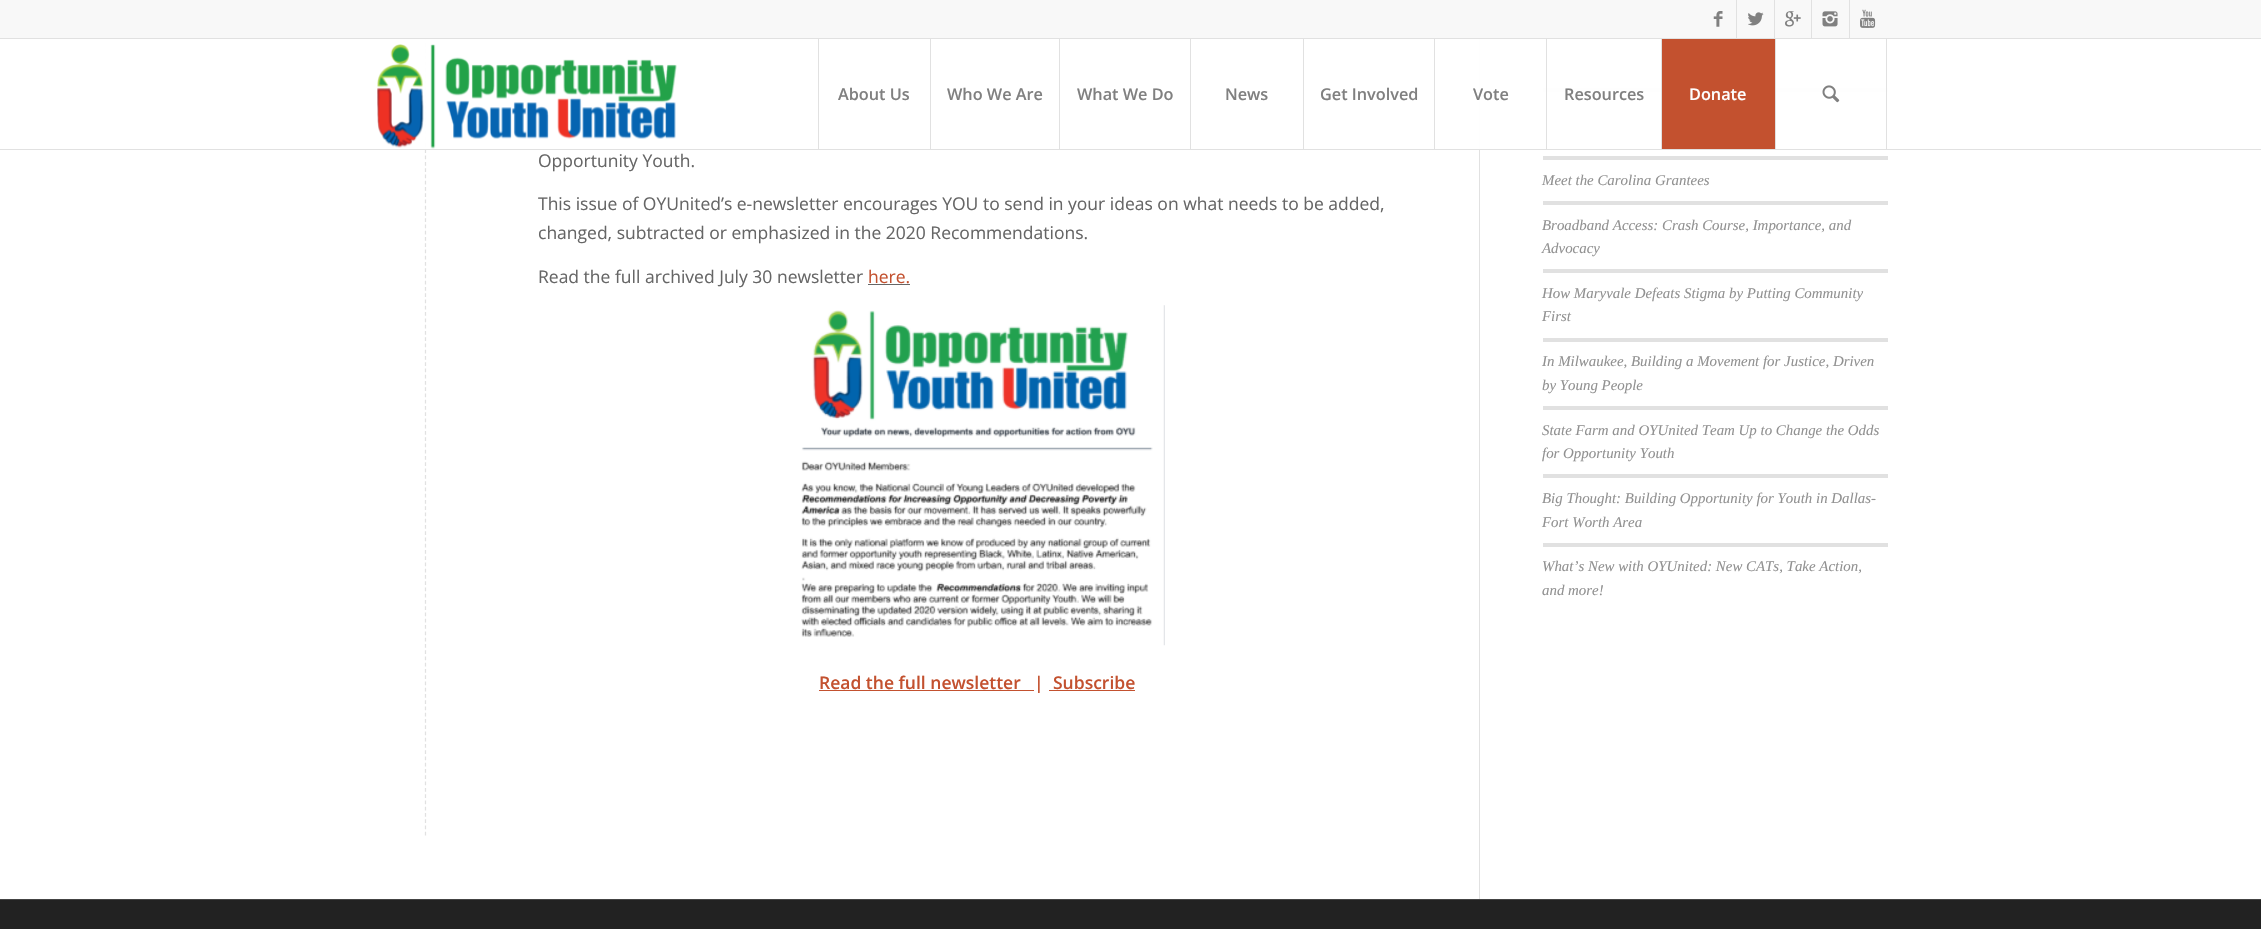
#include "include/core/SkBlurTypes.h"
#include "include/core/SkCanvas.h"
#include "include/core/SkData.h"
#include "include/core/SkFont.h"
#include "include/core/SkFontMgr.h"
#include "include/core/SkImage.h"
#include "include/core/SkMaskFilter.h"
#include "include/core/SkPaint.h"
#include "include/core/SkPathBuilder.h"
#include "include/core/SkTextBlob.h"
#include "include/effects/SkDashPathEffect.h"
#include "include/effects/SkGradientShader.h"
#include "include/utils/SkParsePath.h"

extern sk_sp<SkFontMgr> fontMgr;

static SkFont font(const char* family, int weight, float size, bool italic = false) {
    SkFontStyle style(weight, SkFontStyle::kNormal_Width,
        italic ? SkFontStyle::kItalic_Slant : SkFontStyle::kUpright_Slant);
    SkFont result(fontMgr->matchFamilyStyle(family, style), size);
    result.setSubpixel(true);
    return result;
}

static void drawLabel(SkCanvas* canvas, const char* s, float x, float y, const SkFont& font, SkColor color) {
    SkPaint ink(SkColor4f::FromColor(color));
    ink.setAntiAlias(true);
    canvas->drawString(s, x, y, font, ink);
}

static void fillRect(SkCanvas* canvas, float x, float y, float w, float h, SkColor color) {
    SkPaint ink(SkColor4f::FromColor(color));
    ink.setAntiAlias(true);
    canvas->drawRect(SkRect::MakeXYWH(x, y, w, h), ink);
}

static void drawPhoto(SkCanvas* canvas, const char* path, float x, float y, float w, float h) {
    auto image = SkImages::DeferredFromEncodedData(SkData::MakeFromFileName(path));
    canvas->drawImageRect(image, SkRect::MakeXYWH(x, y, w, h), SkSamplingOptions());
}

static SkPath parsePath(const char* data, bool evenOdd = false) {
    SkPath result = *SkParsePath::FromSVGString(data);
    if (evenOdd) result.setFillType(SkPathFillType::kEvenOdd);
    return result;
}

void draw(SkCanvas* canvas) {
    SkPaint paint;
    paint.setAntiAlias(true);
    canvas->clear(0xFFFFFFFF);
    paint.setStroke(true);
    paint.setStrokeWidth(1.2f);
    paint.setColor(0xFFE1E1E1);
    paint.setPathEffect(SkDashPathEffect::Make({{3.75f, 2.51f}}, 0));
    canvas->drawPath(parsePath("M425.5-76V836"), paint);
    paint.setPathEffect(nullptr);
    fillRect(canvas, 0, 0, 2261, 38, 0xFFF8F8F8);
    fillRect(canvas, 0, 38, 2261, 1, 0xFFE1E1E1);
    fillRect(canvas, 1736, 0, 1, 38, 0xFFE1E1E1);
    drawPhoto(canvas, "assets/img1.png", 1713, 11, 10, 16);
    fillRect(canvas, 1774, 0, 1, 38, 0xFFE1E1E1);
    drawPhoto(canvas, "assets/img2.png", 1748, 12, 16, 14);
    fillRect(canvas, 1811, 0, 1, 38, 0xFFE1E1E1);
    drawPhoto(canvas, "assets/img3.png", 1785, 11, 16, 16);
    fillRect(canvas, 1849, 0, 1, 38, 0xFFE1E1E1);
    drawPhoto(canvas, "assets/img4.png", 1822, 11, 16, 16);
    drawPhoto(canvas, "assets/img5.png", 1860, 9, 16, 19);
    fillRect(canvas, 1479, 39, 1, 860, 0xFFE1E1E1);
    fillRect(canvas, 1543, 88, 345, 4, 0xFFE1E1E1);
    fillRect(canvas, 424, 39, 1464, 110, 0xF2FFFFFF);
    fillRect(canvas, 0, 149, 2261, 1, 0xFFE1E1E1);
    drawPhoto(canvas, "assets/img6.png", 377, 44, 300, 105);
    fillRect(canvas, 818, 39, 1, 110, 0xFFE1E1E1);
    SkFont font1 = font("Open Sans", 600, 16.25f);
    drawLabel(canvas, "About Us", 838, 100, font1, 0xFF808080);
    fillRect(canvas, 930, 39, 1, 110, 0xFFE1E1E1);
    drawLabel(canvas, "Who We Are", 947, 100, font1, 0xFF808080);
    fillRect(canvas, 1059, 39, 1, 110, 0xFFE1E1E1);
    drawLabel(canvas, "What We Do", 1077, 100, font1, 0xFF808080);
    fillRect(canvas, 1190, 39, 1, 110, 0xFFE1E1E1);
    drawLabel(canvas, "News", 1225, 100, font1, 0xFF808080);
    fillRect(canvas, 1303, 39, 1, 110, 0xFFE1E1E1);
    drawLabel(canvas, "Get Involved", 1320, 100, font1, 0xFF808080);
    fillRect(canvas, 1434, 39, 1, 110, 0xFFE1E1E1);
    drawLabel(canvas, "Vote", 1473, 100, font1, 0xFF808080);
    fillRect(canvas, 1546, 39, 1, 110, 0xFFE1E1E1);
    drawLabel(canvas, "Resources", 1564, 100, font1, 0xFF808080);
    fillRect(canvas, 1662, 39, 113, 110, 0xFFC3512F);
    fillRect(canvas, 1661, 39, 1, 110, 0xFFE1E1E1);
    drawLabel(canvas, "Donate", 1689, 100, font1, 0xFFFFFFFF);
    fillRect(canvas, 1886, 39, 1, 110, 0xFFE1E1E1);
    fillRect(canvas, 1775, 39, 1, 110, 0xFFE1E1E1);
    drawPhoto(canvas, "assets/img7.png", 1822, 85, 18, 18);
    SkFont font2 = font("Open Sans", 400, 17.5f);
    drawLabel(canvas, "Opportunity Youth.", 538, 167, font2, 0xFF666666);
    drawLabel(canvas, "This issue of OYUnited’s e-newsletter encourages YOU to send in your ideas on what needs to be added,", 538, 210, font2, 0xFF666666);
    drawLabel(canvas, "changed, subtracted or emphasized in the 2020 Recommendations.", 538, 239, font2, 0xFF666666);
    drawLabel(canvas, "Read the full archived July 30 newsletter", 538, 283, font2, 0xFF666666);
    drawLabel(canvas, "here.", 868, 283, font2, 0xFFC3512F);
    fillRect(canvas, 868, 284, 42, 1, 0xFF666666);
    drawPhoto(canvas, "assets/img8.png", 801, 305, 364, 341);
    SkFont font3 = font("Open Sans", 600, 17.5f);
    drawLabel(canvas, "Read the full newsletter", 819, 689, font3, 0xFFC3512F);
    fillRect(canvas, 819, 690, 215, 1, 0xFFC3512F);
    drawLabel(canvas, "|", 1034, 689, font3, 0xFFC3512F);
    drawLabel(canvas, "Subscribe", 1053, 689, font3, 0xFFC3512F);
    fillRect(canvas, 1049, 690, 86, 1, 0xFFC3512F);
    fillRect(canvas, 1543, 156, 345, 4, 0xFFE1E1E1);
    SkFont font4 = font("Liberation Serif", 400, 14.9f, true);
    drawLabel(canvas, "Meet the Carolina Grantees", 1542, 185, font4, 0xFF919191);
    fillRect(canvas, 1543, 201, 345, 4, 0xFFE1E1E1);
    drawLabel(canvas, "Broadband Access: Crash Course, Importance, and", 1542, 230, font4, 0xFF919191);
    drawLabel(canvas, "Advocacy", 1542, 253, font4, 0xFF919191);
    fillRect(canvas, 1543, 269, 345, 4, 0xFFE1E1E1);
    drawLabel(canvas, "How Maryvale Defeats Stigma by Putting Community", 1542, 298, font4, 0xFF919191);
    drawLabel(canvas, "First", 1542, 321, font4, 0xFF919191);
    fillRect(canvas, 1543, 338, 345, 4, 0xFFE1E1E1);
    drawLabel(canvas, "In Milwaukee, Building a Movement for Justice, Driven", 1542, 366, font4, 0xFF919191);
    drawLabel(canvas, "by Young People", 1542, 390, font4, 0xFF919191);
    fillRect(canvas, 1543, 406, 345, 4, 0xFFE1E1E1);
    drawLabel(canvas, "State Farm and OYUnited Team Up to Change the Odds", 1542, 435, font4, 0xFF919191);
    drawLabel(canvas, "for Opportunity Youth", 1542, 458, font4, 0xFF919191);
    fillRect(canvas, 1543, 474, 345, 4, 0xFFE1E1E1);
    drawLabel(canvas, "Big Thought: Building Opportunity for Youth in Dallas-", 1542, 503, font4, 0xFF919191);
    drawLabel(canvas, "Fort Worth Area", 1542, 527, font4, 0xFF919191);
    fillRect(canvas, 1543, 543, 345, 4, 0xFFE1E1E1);
    drawLabel(canvas, "What’s New with OYUnited: New CATs, Take Action,", 1542, 571, font4, 0xFF919191);
    drawLabel(canvas, "and more!", 1542, 595, font4, 0xFF919191);
    fillRect(canvas, 0, 900, 2261, 29, 0xFF222222);
    fillRect(canvas, 0, 899, 2261, 1, 0xFF444444);
}
